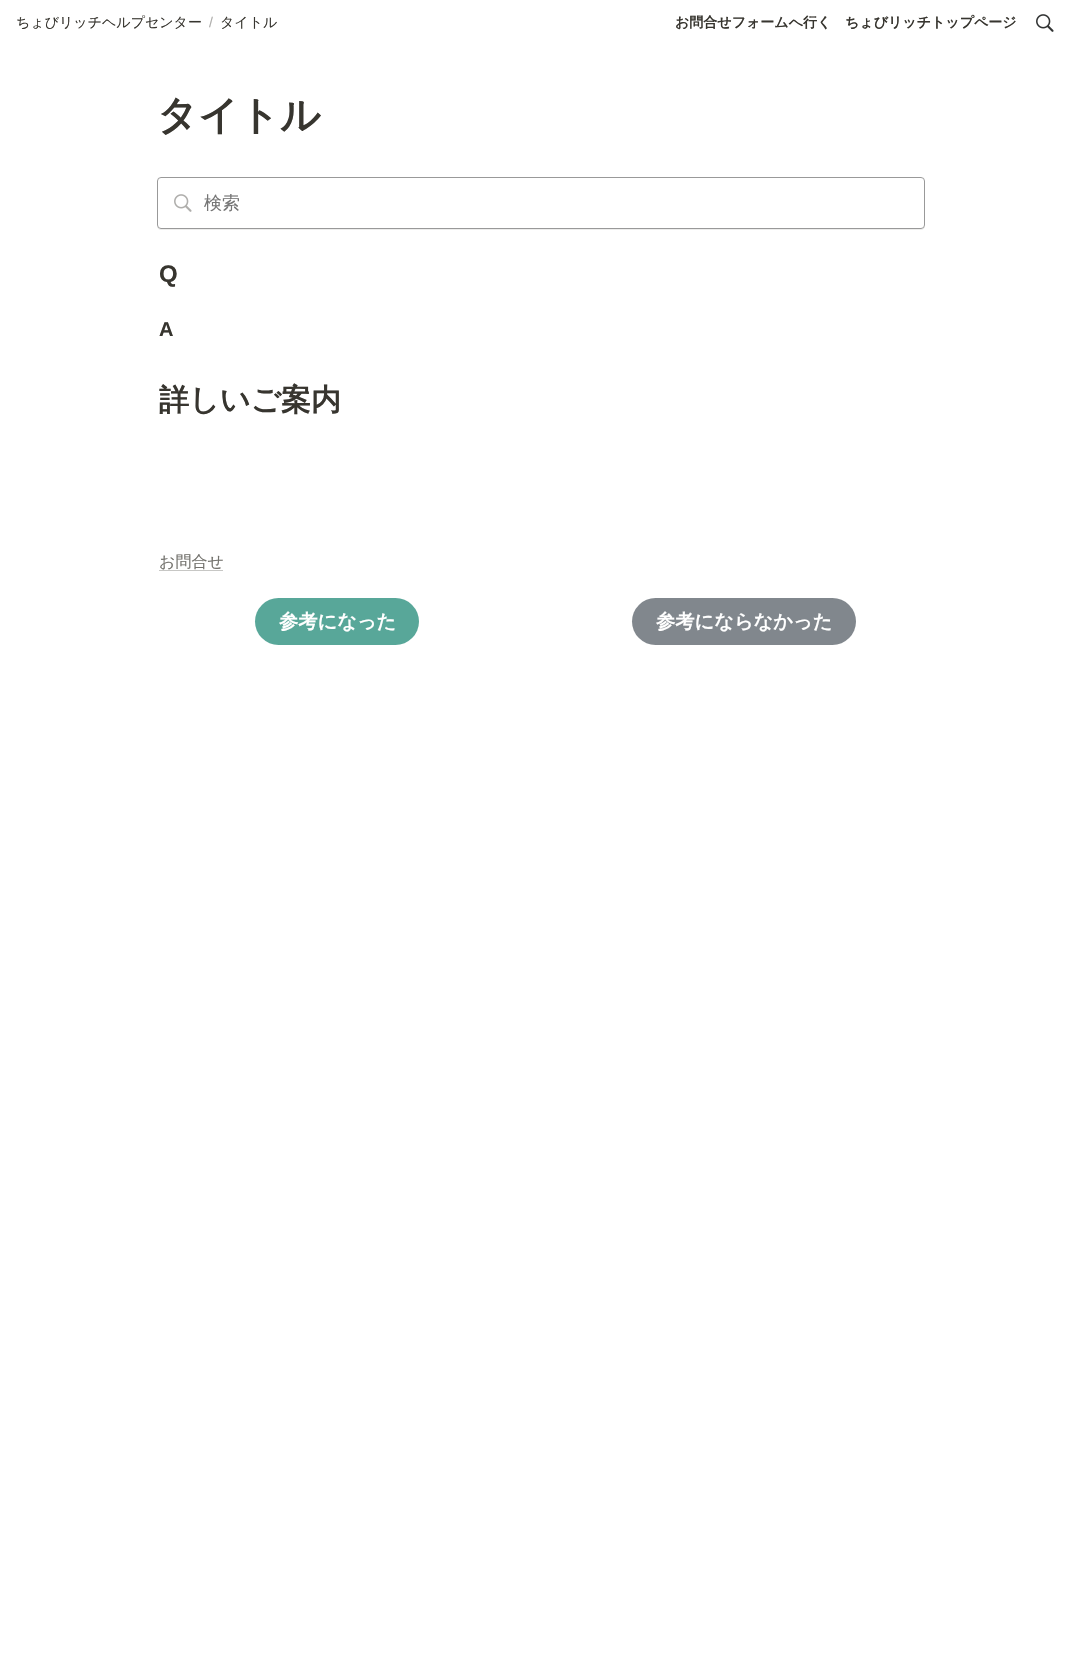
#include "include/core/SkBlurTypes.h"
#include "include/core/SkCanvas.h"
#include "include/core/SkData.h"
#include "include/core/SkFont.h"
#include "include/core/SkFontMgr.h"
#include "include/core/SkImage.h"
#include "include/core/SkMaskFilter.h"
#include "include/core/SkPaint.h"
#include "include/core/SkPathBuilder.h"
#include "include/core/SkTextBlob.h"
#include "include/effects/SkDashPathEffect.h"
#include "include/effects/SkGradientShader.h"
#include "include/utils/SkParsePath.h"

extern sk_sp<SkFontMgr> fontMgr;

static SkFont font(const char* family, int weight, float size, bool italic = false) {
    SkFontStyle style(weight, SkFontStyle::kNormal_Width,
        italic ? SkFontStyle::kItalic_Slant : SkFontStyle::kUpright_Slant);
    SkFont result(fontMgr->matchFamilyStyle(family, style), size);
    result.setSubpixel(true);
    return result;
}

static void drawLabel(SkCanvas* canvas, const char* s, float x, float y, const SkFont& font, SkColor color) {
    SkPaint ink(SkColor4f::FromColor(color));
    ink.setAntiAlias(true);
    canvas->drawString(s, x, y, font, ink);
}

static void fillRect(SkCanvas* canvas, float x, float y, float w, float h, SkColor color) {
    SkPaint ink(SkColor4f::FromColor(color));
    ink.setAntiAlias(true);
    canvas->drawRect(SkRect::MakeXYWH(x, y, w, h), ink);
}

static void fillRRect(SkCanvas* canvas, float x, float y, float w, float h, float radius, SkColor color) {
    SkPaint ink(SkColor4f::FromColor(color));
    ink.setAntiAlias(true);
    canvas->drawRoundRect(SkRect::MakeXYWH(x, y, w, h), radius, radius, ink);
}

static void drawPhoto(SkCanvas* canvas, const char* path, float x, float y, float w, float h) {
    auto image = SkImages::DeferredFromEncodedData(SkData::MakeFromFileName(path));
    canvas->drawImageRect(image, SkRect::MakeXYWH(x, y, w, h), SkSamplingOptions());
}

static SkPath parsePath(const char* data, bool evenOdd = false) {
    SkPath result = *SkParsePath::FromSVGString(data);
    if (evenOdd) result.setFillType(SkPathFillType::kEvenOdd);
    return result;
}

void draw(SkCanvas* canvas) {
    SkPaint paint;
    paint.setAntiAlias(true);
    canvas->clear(0xFFFFFFFF);
    SkFont font1 = font("WenQuanYi Zen Hei", 500, 14);
    drawLabel(canvas, "ちょびリッチヘルプセンター", 16, 27, font1, 0xFF37352F);
    SkFont font2 = font("Liberation Sans", 400, 14);
    drawLabel(canvas, "/", 209, 27, font2, 0xFFAFAEAC);
    drawLabel(canvas, "タイトル", 220, 27, font1, 0xFF37352F);
    SkFont font3 = font("WenQuanYi Zen Hei", 700, 14);
    drawLabel(canvas, "お問合せフォームへ行く", 675, 27, font3, 0xFF37352F);
    drawLabel(canvas, "ちょびリッチトップページ", 845, 27, font3, 0xFF37352F);
    drawPhoto(canvas, "assets/img1.png", 1036, 14, 18, 18);
    SkFont font4 = font("WenQuanYi Zen Hei", 700, 40);
    drawLabel(canvas, "タイトル", 157, 129, font4, 0xFF37352F);
    paint.setColor(0xFFEDEDEC);
    canvas->drawPath(parsePath("M157 225V226C157 228 159 230 161 230H921C923 230 925 228 925 226V225C925 227 923 229 921 229H161C159 229 157 227 157 225Z"), paint);
    paint.setStroke(true);
    paint.setStrokeWidth(1);
    paint.setColor(0xFF999999);
    canvas->drawRoundRect(SkRect::MakeXYWH(157.5f, 177.5f, 767, 51), 3.5f, 3.5f, paint);
    drawPhoto(canvas, "assets/img2.png", 174, 194, 18, 18);
    SkFont font5 = font("WenQuanYi Zen Hei", 500, 18);
    drawLabel(canvas, "検索", 204, 209, font5, 0xFF757575);
    SkFont font6 = font("Liberation Sans", 700, 24);
    drawLabel(canvas, "Q", 159, 282, font6, 0xFF37352F);
    SkFont font7 = font("Liberation Sans", 700, 20);
    drawLabel(canvas, "A", 159, 336, font7, 0xFF37352F);
    SkFont font8 = font("WenQuanYi Zen Hei", 700, 30);
    drawLabel(canvas, "詳しいご案内", 159, 410, font8, 0xFF37352F);
    SkFont font9 = font("WenQuanYi Zen Hei", 500, 16);
    drawLabel(canvas, "お問合せ", 159, 567, font9, 0xFF73726D);
    fillRect(canvas, 159, 570, 64, 1, 0xFFC7C7C5);
    fillRRect(canvas, 255, 598, 164, 47, 23.5f, 0xFF58A799);
    SkFont font10 = font("WenQuanYi Zen Hei", 700, 19.25f);
    drawLabel(canvas, "参考になった", 279, 628, font10, 0xFFFFFFFF);
    fillRRect(canvas, 632, 598, 224, 47, 23.5f, 0xFF81878D);
    drawLabel(canvas, "参考にならなかった", 656, 628, font10, 0xFFFFFFFF);
}
